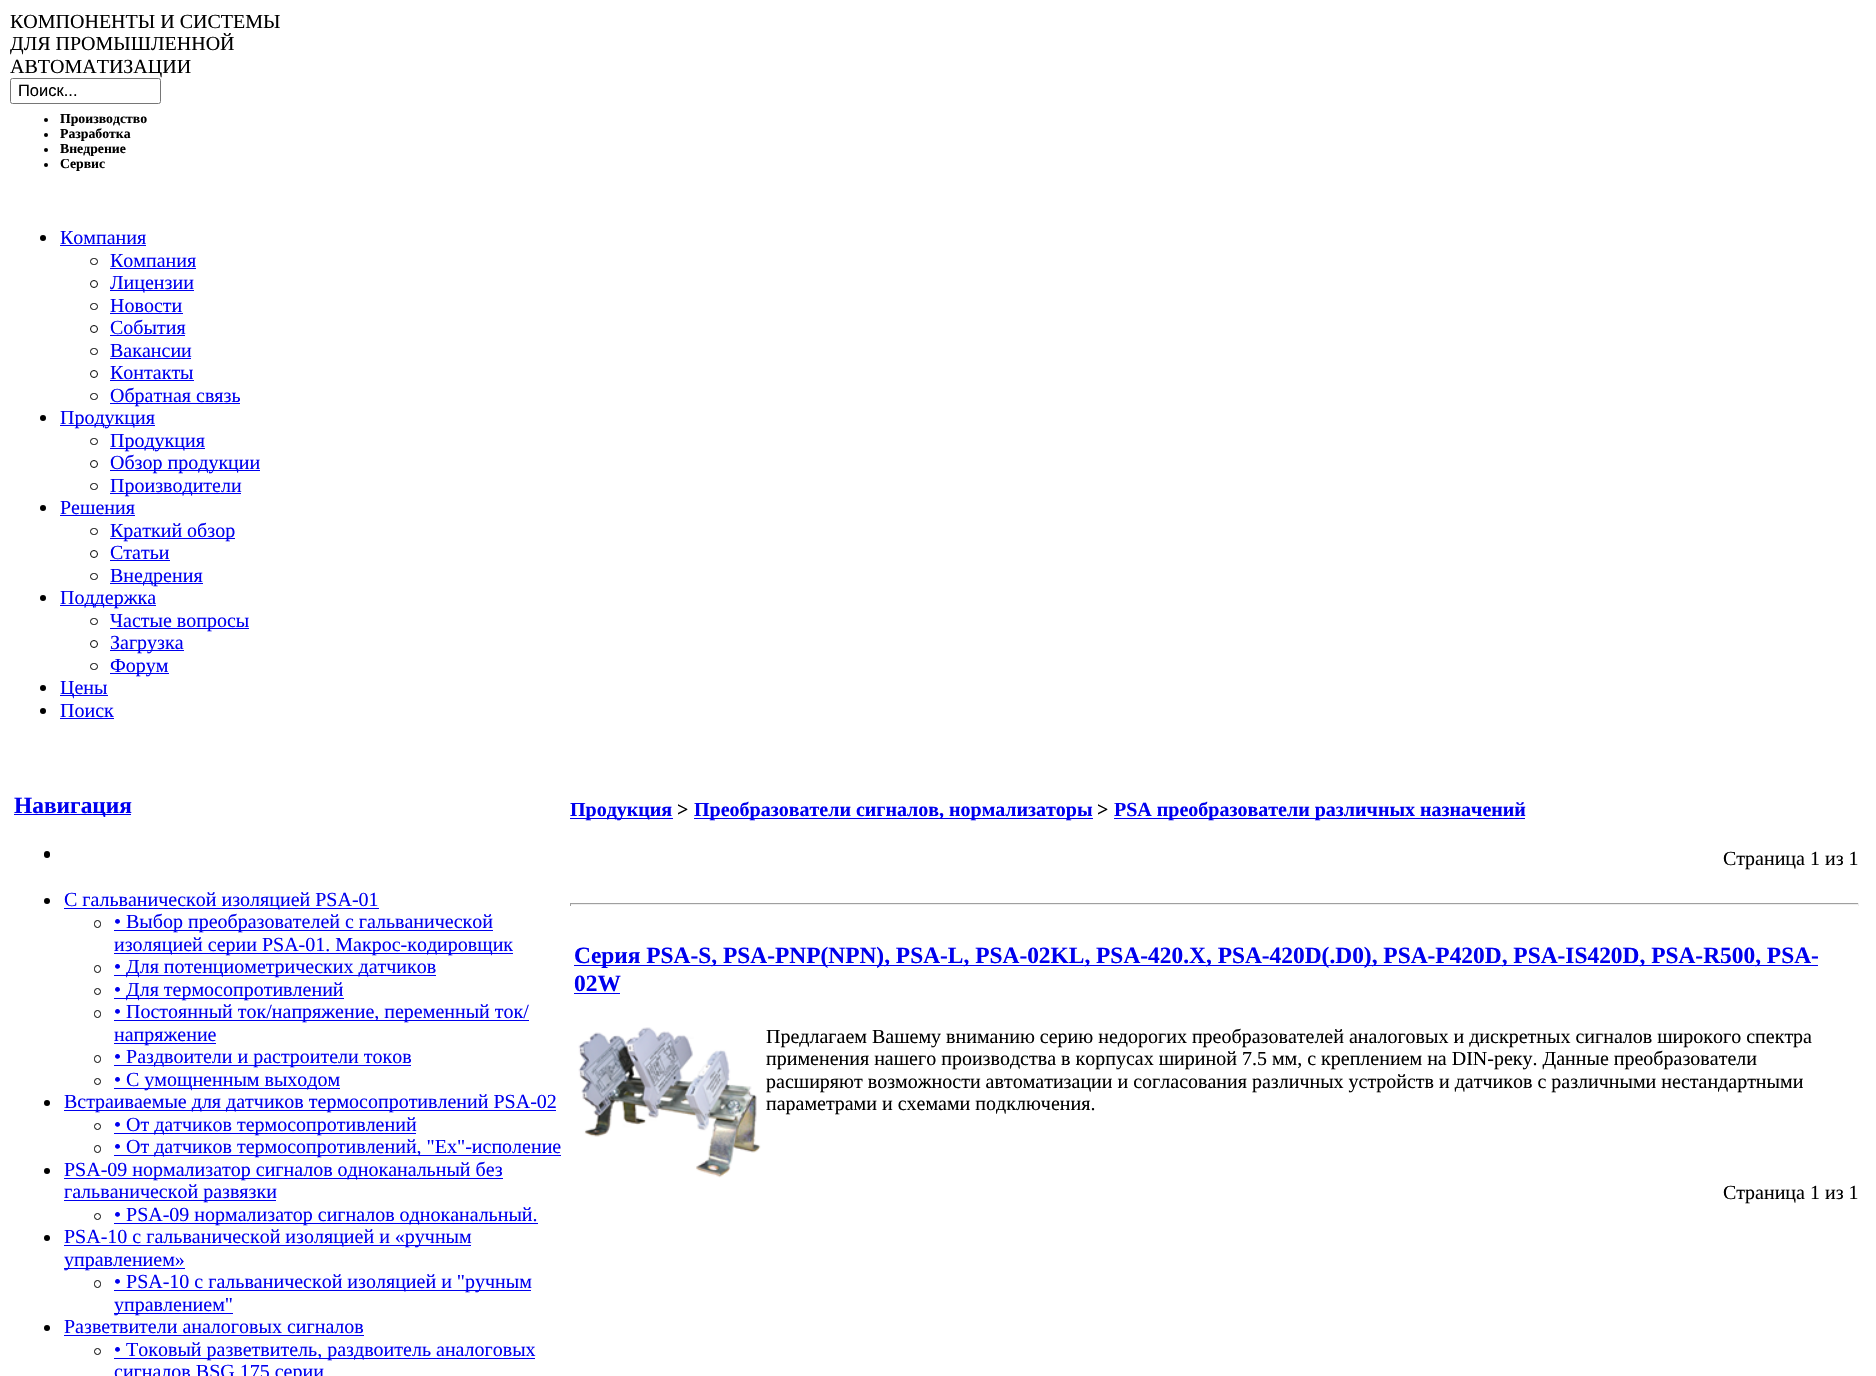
#include "include/core/SkBlurTypes.h"
#include "include/core/SkCanvas.h"
#include "include/core/SkData.h"
#include "include/core/SkFont.h"
#include "include/core/SkFontMgr.h"
#include "include/core/SkImage.h"
#include "include/core/SkMaskFilter.h"
#include "include/core/SkPaint.h"
#include "include/core/SkPathBuilder.h"
#include "include/core/SkTextBlob.h"
#include "include/effects/SkDashPathEffect.h"
#include "include/effects/SkGradientShader.h"
#include "include/utils/SkParsePath.h"

extern sk_sp<SkFontMgr> fontMgr;

static SkFont font(const char* family, int weight, float size, bool italic = false) {
    SkFontStyle style(weight, SkFontStyle::kNormal_Width,
        italic ? SkFontStyle::kItalic_Slant : SkFontStyle::kUpright_Slant);
    SkFont result(fontMgr->matchFamilyStyle(family, style), size);
    result.setSubpixel(true);
    return result;
}

static void drawLabel(SkCanvas* canvas, const char* s, float x, float y, const SkFont& font, SkColor color) {
    SkPaint ink(SkColor4f::FromColor(color));
    ink.setAntiAlias(true);
    canvas->drawString(s, x, y, font, ink);
}

static void fillRect(SkCanvas* canvas, float x, float y, float w, float h, SkColor color) {
    SkPaint ink(SkColor4f::FromColor(color));
    ink.setAntiAlias(true);
    canvas->drawRect(SkRect::MakeXYWH(x, y, w, h), ink);
}

static void fillRRect(SkCanvas* canvas, float x, float y, float w, float h, float radius, SkColor color) {
    SkPaint ink(SkColor4f::FromColor(color));
    ink.setAntiAlias(true);
    canvas->drawRoundRect(SkRect::MakeXYWH(x, y, w, h), radius, radius, ink);
}

static void drawPhoto(SkCanvas* canvas, const char* path, float x, float y, float w, float h) {
    auto image = SkImages::DeferredFromEncodedData(SkData::MakeFromFileName(path));
    canvas->drawImageRect(image, SkRect::MakeXYWH(x, y, w, h), SkSamplingOptions());
}

void draw(SkCanvas* canvas) {
    SkPaint paint;
    paint.setAntiAlias(true);
    canvas->clear(0xFFFFFFFF);
    SkFont font1 = font("Liberation Serif", 400, 20);
    drawLabel(canvas, "КОМПОНЕНТЫ И СИСТЕМЫ", 10, 28, font1, 0xFF000000);
    drawLabel(canvas, "ДЛЯ ПРОМЫШЛЕННОЙ", 10, 50, font1, 0xFF000000);
    drawLabel(canvas, "АВТОМАТИЗАЦИИ", 10, 73, font1, 0xFF000000);
    paint.setStroke(true);
    paint.setStrokeWidth(1);
    paint.setColor(0xFF767676);
    canvas->drawRoundRect(SkRect::MakeXYWH(10.5f, 78.5f, 150, 25), 2, 2, paint);
    SkFont font2 = font("Liberation Sans", 400, 16.5f);
    drawLabel(canvas, "Поиск...", 18, 96, font2, 0xFF000000);
    paint.setStroke(false);
    paint.setColor(0xFF000000);
    canvas->drawCircle(46, 120, 2, paint);
    SkFont font3 = font("Liberation Serif", 700, 13.75f);
    drawLabel(canvas, "Производство", 60, 123, font3, 0xFF000000);
    canvas->drawCircle(46, 135, 2, paint);
    drawLabel(canvas, "Разработка", 60, 138, font3, 0xFF000000);
    canvas->drawCircle(46, 150, 2, paint);
    drawLabel(canvas, "Внедрение", 60, 153, font3, 0xFF000000);
    canvas->drawCircle(46, 165, 2, paint);
    drawLabel(canvas, "Сервис", 60, 168, font3, 0xFF000000);
    canvas->drawCircle(43, 238, 3, paint);
    drawLabel(canvas, "Компания", 60, 244, font1, 0xFF0000EE);
    fillRect(canvas, 60, 245, 86, 1, 0xFF0000EE);
    paint.setStroke(true);
    canvas->drawRoundRect(SkRect::MakeXYWH(90.5f, 258.5f, 7, 6), 3, 3, paint);
    drawLabel(canvas, "Компания", 110, 267, font1, 0xFF0000EE);
    fillRect(canvas, 110, 268, 86, 1, 0xFF0000EE);
    canvas->drawCircle(94, 284, 3.5f, paint);
    fillRect(canvas, 110, 290, 84, 1, 0xFF0000EE);
    drawLabel(canvas, "Лицензии", 110, 289, font1, 0xFF0000EE);
    canvas->drawRoundRect(SkRect::MakeXYWH(90.5f, 303.5f, 7, 6), 3, 3, paint);
    drawLabel(canvas, "Новости", 110, 312, font1, 0xFF0000EE);
    fillRect(canvas, 110, 313, 73, 1, 0xFF0000EE);
    canvas->drawCircle(94, 329, 3.5f, paint);
    drawLabel(canvas, "События", 110, 334, font1, 0xFF0000EE);
    fillRect(canvas, 110, 335, 75, 1, 0xFF0000EE);
    canvas->drawRoundRect(SkRect::MakeXYWH(90.5f, 348.5f, 7, 6), 3, 3, paint);
    drawLabel(canvas, "Вакансии", 110, 357, font1, 0xFF0000EE);
    fillRect(canvas, 110, 358, 81, 1, 0xFF0000EE);
    canvas->drawCircle(94, 374, 3.5f, paint);
    drawLabel(canvas, "Контакты", 110, 379, font1, 0xFF0000EE);
    fillRect(canvas, 110, 380, 84, 1, 0xFF0000EE);
    canvas->drawRoundRect(SkRect::MakeXYWH(90.5f, 393.5f, 7, 6), 3, 3, paint);
    fillRect(canvas, 110, 403, 130, 1, 0xFF0000EE);
    drawLabel(canvas, "Обратная связь", 110, 402, font1, 0xFF0000EE);
    paint.setStroke(false);
    canvas->drawCircle(43, 418, 3, paint);
    fillRect(canvas, 60, 425, 95, 1, 0xFF0000EE);
    drawLabel(canvas, "Продукция", 60, 424, font1, 0xFF0000EE);
    paint.setStroke(true);
    canvas->drawRoundRect(SkRect::MakeXYWH(90.5f, 438.5f, 7, 6), 3, 3, paint);
    fillRect(canvas, 110, 448, 95, 1, 0xFF0000EE);
    drawLabel(canvas, "Продукция", 110, 447, font1, 0xFF0000EE);
    canvas->drawCircle(94, 464, 3.5f, paint);
    fillRect(canvas, 110, 470, 150, 1, 0xFF0000EE);
    drawLabel(canvas, "Обзор продукции", 110, 469, font1, 0xFF0000EE);
    canvas->drawRoundRect(SkRect::MakeXYWH(90.5f, 483.5f, 7, 6), 3, 3, paint);
    fillRect(canvas, 110, 493, 131, 1, 0xFF0000EE);
    drawLabel(canvas, "Производители", 110, 492, font1, 0xFF0000EE);
    paint.setStroke(false);
    canvas->drawCircle(43, 508, 3, paint);
    drawLabel(canvas, "Решения", 60, 514, font1, 0xFF0000EE);
    fillRect(canvas, 60, 515, 75, 1, 0xFF0000EE);
    paint.setStroke(true);
    canvas->drawRoundRect(SkRect::MakeXYWH(90.5f, 528.5f, 7, 6), 3, 3, paint);
    fillRect(canvas, 110, 538, 125, 1, 0xFF0000EE);
    drawLabel(canvas, "Краткий обзор", 110, 537, font1, 0xFF0000EE);
    canvas->drawCircle(94, 554, 3.5f, paint);
    drawLabel(canvas, "Статьи", 110, 559, font1, 0xFF0000EE);
    fillRect(canvas, 110, 560, 60, 1, 0xFF0000EE);
    canvas->drawRoundRect(SkRect::MakeXYWH(90.5f, 573.5f, 7, 6), 3, 3, paint);
    fillRect(canvas, 110, 583, 93, 1, 0xFF0000EE);
    drawLabel(canvas, "Внедрения", 110, 582, font1, 0xFF0000EE);
    paint.setStroke(false);
    canvas->drawCircle(43, 598, 3, paint);
    fillRect(canvas, 60, 605, 96, 1, 0xFF0000EE);
    drawLabel(canvas, "Поддержка", 60, 604, font1, 0xFF0000EE);
    paint.setStroke(true);
    canvas->drawRoundRect(SkRect::MakeXYWH(90.5f, 618.5f, 7, 6), 3, 3, paint);
    fillRect(canvas, 110, 628, 139, 1, 0xFF0000EE);
    drawLabel(canvas, "Частые вопросы", 110, 627, font1, 0xFF0000EE);
    canvas->drawCircle(94, 644, 3.5f, paint);
    fillRect(canvas, 110, 650, 74, 1, 0xFF0000EE);
    drawLabel(canvas, "Загрузка", 110, 649, font1, 0xFF0000EE);
    canvas->drawRoundRect(SkRect::MakeXYWH(90.5f, 663.5f, 7, 6), 3, 3, paint);
    fillRect(canvas, 110, 673, 59, 1, 0xFF0000EE);
    drawLabel(canvas, "Форум", 110, 672, font1, 0xFF0000EE);
    paint.setStroke(false);
    canvas->drawCircle(43, 688, 3, paint);
    fillRect(canvas, 60, 695, 48, 1, 0xFF0000EE);
    drawLabel(canvas, "Цены", 60, 694, font1, 0xFF0000EE);
    canvas->drawCircle(43, 711, 3, paint);
    drawLabel(canvas, "Поиск", 60, 717, font1, 0xFF0000EE);
    fillRect(canvas, 60, 718, 54, 1, 0xFF0000EE);
    fillRect(canvas, 14, 814, 117, 1, 0xFF0000EE);
    SkFont font4 = font("Liberation Serif", 700, 23.4f);
    drawLabel(canvas, "Навигация", 14, 813, font4, 0xFF0000EE);
    fillRRect(canvas, 44, 851, 6, 7, 3, 0xFF000000);
    canvas->drawCircle(47, 901, 3, paint);
    fillRect(canvas, 64, 908, 315, 1, 0xFF0000EE);
    drawLabel(canvas, "С гальванической изоляцией PSA-01", 64, 906, font1, 0xFF0000EE);
    paint.setStroke(true);
    canvas->drawRoundRect(SkRect::MakeXYWH(94.5f, 920.5f, 6, 7), 3, 3, paint);
    fillRect(canvas, 114, 930, 379, 1, 0xFF0000EE);
    drawLabel(canvas, "• Выбор преобразователей с гальванической", 114, 928, font1, 0xFF0000EE);
    fillRect(canvas, 114, 953, 399, 1, 0xFF0000EE);
    drawLabel(canvas, "изоляцией серии PSA-01. Макрос-кодировщик", 114, 951, font1, 0xFF0000EE);
    canvas->drawRoundRect(SkRect::MakeXYWH(94.5f, 965.5f, 6, 7), 3, 3, paint);
    fillRect(canvas, 114, 975, 322, 1, 0xFF0000EE);
    drawLabel(canvas, "• Для потенциометрических датчиков", 114, 973, font1, 0xFF0000EE);
    canvas->drawCircle(97.5f, 991.5f, 3, paint);
    fillRect(canvas, 114, 998, 230, 1, 0xFF0000EE);
    drawLabel(canvas, "• Для термосопротивлений", 114, 996, font1, 0xFF0000EE);
    canvas->drawRoundRect(SkRect::MakeXYWH(94.5f, 1010.5f, 6, 7), 3, 3, paint);
    fillRect(canvas, 114, 1020, 415, 1, 0xFF0000EE);
    drawLabel(canvas, "• Постоянный ток/напряжение, переменный ток/", 114, 1018, font1, 0xFF0000EE);
    fillRect(canvas, 114, 1043, 102, 1, 0xFF0000EE);
    drawLabel(canvas, "напряжение", 114, 1041, font1, 0xFF0000EE);
    canvas->drawRoundRect(SkRect::MakeXYWH(94.5f, 1055.5f, 6, 7), 3, 3, paint);
    fillRect(canvas, 114, 1065, 297, 1, 0xFF0000EE);
    drawLabel(canvas, "• Раздвоители и растроители токов", 114, 1063, font1, 0xFF0000EE);
    canvas->drawCircle(97.5f, 1081.5f, 3, paint);
    fillRect(canvas, 114, 1088, 226, 1, 0xFF0000EE);
    drawLabel(canvas, "• С умощненным выходом", 114, 1086, font1, 0xFF0000EE);
    paint.setStroke(false);
    canvas->drawCircle(47, 1103, 3, paint);
    fillRect(canvas, 64, 1110, 492, 1, 0xFF0000EE);
    drawLabel(canvas, "Встраиваемые для датчиков термосопротивлений PSA-02", 64, 1108, font1, 0xFF0000EE);
    paint.setStroke(true);
    canvas->drawCircle(97.5f, 1126.5f, 3, paint);
    fillRect(canvas, 114, 1133, 302, 1, 0xFF0000EE);
    drawLabel(canvas, "• От датчиков термосопротивлений", 114, 1131, font1, 0xFF0000EE);
    canvas->drawRoundRect(SkRect::MakeXYWH(94.5f, 1145.5f, 6, 7), 3, 3, paint);
    fillRect(canvas, 114, 1155, 447, 1, 0xFF0000EE);
    drawLabel(canvas, "• От датчиков термосопротивлений, \"Ex\"-исполение", 114, 1153, font1, 0xFF0000EE);
    paint.setStroke(false);
    canvas->drawCircle(47, 1171, 3, paint);
    fillRect(canvas, 64, 1178, 439, 1, 0xFF0000EE);
    drawLabel(canvas, "PSA-09 нормализатор сигналов одноканальный без", 64, 1176, font1, 0xFF0000EE);
    fillRect(canvas, 64, 1200, 212, 1, 0xFF0000EE);
    drawLabel(canvas, "гальванической развязки", 64, 1198, font1, 0xFF0000EE);
    paint.setStroke(true);
    canvas->drawCircle(97.5f, 1216.5f, 3, paint);
    fillRect(canvas, 114, 1223, 424, 1, 0xFF0000EE);
    drawLabel(canvas, "• PSA-09 нормализатор сигналов одноканальный.", 114, 1221, font1, 0xFF0000EE);
    paint.setStroke(false);
    canvas->drawCircle(47, 1238, 3, paint);
    fillRect(canvas, 64, 1245, 407, 1, 0xFF0000EE);
    drawLabel(canvas, "PSA-10 c гальванической изоляцией и «ручным", 64, 1243, font1, 0xFF0000EE);
    fillRect(canvas, 64, 1268, 121, 1, 0xFF0000EE);
    drawLabel(canvas, "управлением»", 64, 1266, font1, 0xFF0000EE);
    paint.setStroke(true);
    canvas->drawRoundRect(SkRect::MakeXYWH(94.5f, 1280.5f, 6, 7), 3, 3, paint);
    fillRect(canvas, 114, 1290, 417, 1, 0xFF0000EE);
    drawLabel(canvas, "• PSA-10 c гальванической изоляцией и \"ручным", 114, 1288, font1, 0xFF0000EE);
    fillRect(canvas, 114, 1313, 119, 1, 0xFF0000EE);
    drawLabel(canvas, "управлением\"", 114, 1311, font1, 0xFF0000EE);
    paint.setStroke(false);
    canvas->drawCircle(47, 1328, 3, paint);
    drawLabel(canvas, "Разветвители аналоговых сигналов", 64, 1333, font1, 0xFF0000EE);
    fillRect(canvas, 64, 1335, 300, 1, 0xFF0000EE);
    paint.setStroke(true);
    canvas->drawCircle(97.5f, 1351.5f, 3, paint);
    fillRect(canvas, 114, 1358, 421, 1, 0xFF0000EE);
    drawLabel(canvas, "• Токовый разветвитель, раздвоитель аналоговых", 114, 1356, font1, 0xFF0000EE);
    drawLabel(canvas, "сигналов BSG.175 серии", 114, 1378, font1, 0xFF0000EE);
    fillRect(canvas, 570, 818, 103, 1, 0xFF0000EE);
    SkFont font5 = font("Liberation Serif", 700, 20);
    drawLabel(canvas, "Продукция", 570, 816, font5, 0xFF0000EE);
    drawLabel(canvas, ">", 677, 816, font5, 0xFF000000);
    fillRect(canvas, 694, 818, 399, 1, 0xFF0000EE);
    drawLabel(canvas, "Преобразователи сигналов, нормализаторы", 694, 816, font5, 0xFF0000EE);
    drawLabel(canvas, ">", 1097, 816, font5, 0xFF000000);
    fillRect(canvas, 1114, 818, 411, 1, 0xFF0000EE);
    drawLabel(canvas, "PSA преобразователи различных назначений", 1114, 816, font5, 0xFF0000EE);
    drawLabel(canvas, "Страница 1 из 1", 1723, 865, font1, 0xFF000000);
    fillRect(canvas, 570, 903, 1289, 1, 0xFF9F9F9F);
    fillRect(canvas, 1858, 903, 1, 3, 0xFFEEEEEE);
    fillRect(canvas, 570, 904, 1289, 1, 0xFFEEEEEE);
    fillRect(canvas, 570, 903, 1, 3, 0xFF9F9F9F);
    fillRect(canvas, 574, 965, 1244, 1, 0xFF0000EE);
    drawLabel(canvas, "Серия PSA-S, PSA-PNP(NPN), PSA-L, PSA-02KL, PSA-420.X, PSA-420D(.D0), PSA-P420D, PSA-IS420D, PSA-R500, PSA-", 574, 963, font4, 0xFF0000EE);
    drawLabel(canvas, "02W", 574, 991, font4, 0xFF0000EE);
    fillRect(canvas, 574, 993, 46, 1, 0xFF0000EE);
    drawPhoto(canvas, "assets/img1.png", 578, 1027, 183, 151);
    drawLabel(canvas, "Предлагаем Вашему вниманию серию недорогих преобразователей аналоговых и дискретных сигналов широкого спектра", 766, 1043, font1, 0xFF000000);
    drawLabel(canvas, "применения нашего производства в корпусах шириной 7.5 мм, с креплением на DIN-реку. Данные преобразователи", 766, 1065, font1, 0xFF000000);
    drawLabel(canvas, "расширяют возможности автоматизации и согласования различных устройств и датчиков с различными нестандартными", 766, 1088, font1, 0xFF000000);
    drawLabel(canvas, "параметрами и схемами подключения.", 766, 1110, font1, 0xFF000000);
    drawLabel(canvas, "Страница 1 из 1", 1723, 1199, font1, 0xFF000000);
}
